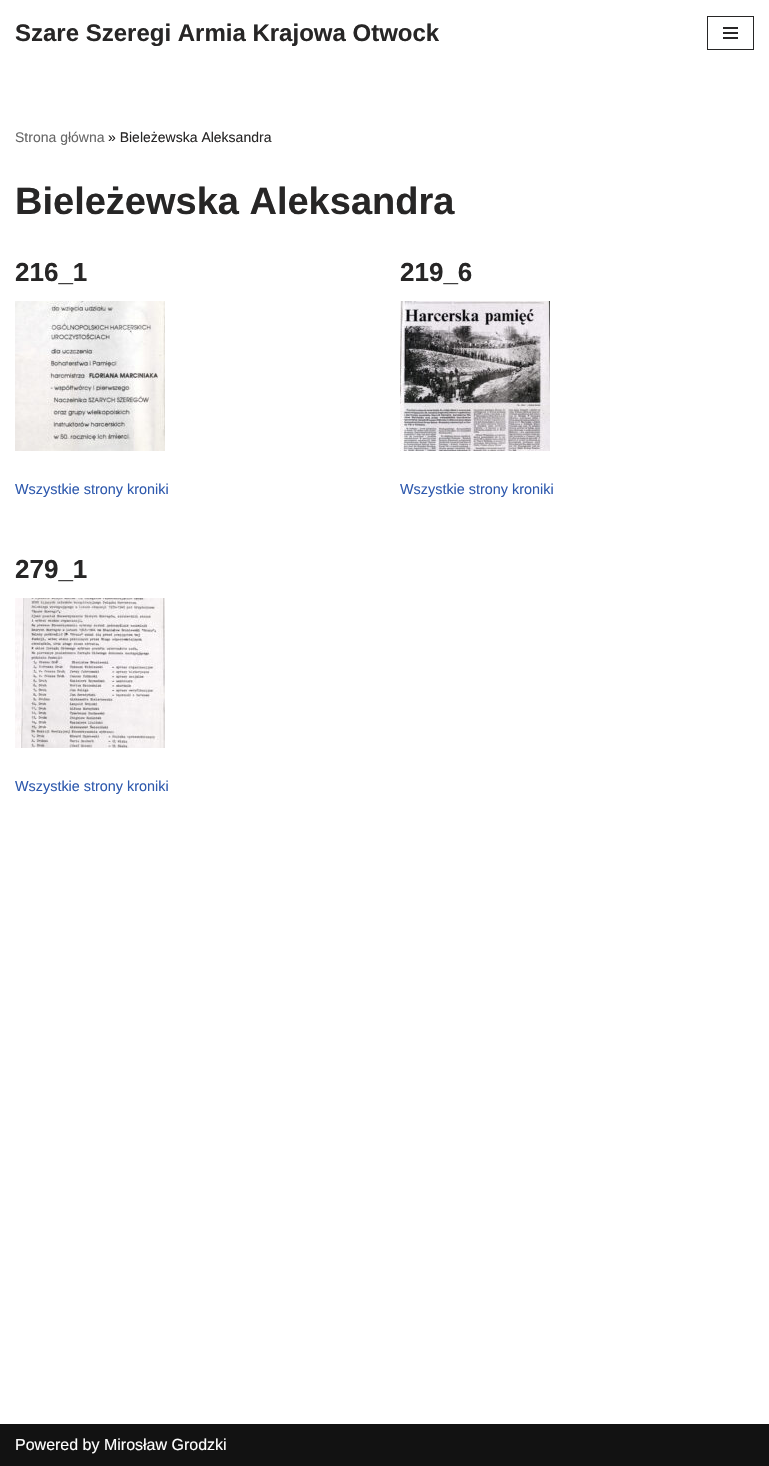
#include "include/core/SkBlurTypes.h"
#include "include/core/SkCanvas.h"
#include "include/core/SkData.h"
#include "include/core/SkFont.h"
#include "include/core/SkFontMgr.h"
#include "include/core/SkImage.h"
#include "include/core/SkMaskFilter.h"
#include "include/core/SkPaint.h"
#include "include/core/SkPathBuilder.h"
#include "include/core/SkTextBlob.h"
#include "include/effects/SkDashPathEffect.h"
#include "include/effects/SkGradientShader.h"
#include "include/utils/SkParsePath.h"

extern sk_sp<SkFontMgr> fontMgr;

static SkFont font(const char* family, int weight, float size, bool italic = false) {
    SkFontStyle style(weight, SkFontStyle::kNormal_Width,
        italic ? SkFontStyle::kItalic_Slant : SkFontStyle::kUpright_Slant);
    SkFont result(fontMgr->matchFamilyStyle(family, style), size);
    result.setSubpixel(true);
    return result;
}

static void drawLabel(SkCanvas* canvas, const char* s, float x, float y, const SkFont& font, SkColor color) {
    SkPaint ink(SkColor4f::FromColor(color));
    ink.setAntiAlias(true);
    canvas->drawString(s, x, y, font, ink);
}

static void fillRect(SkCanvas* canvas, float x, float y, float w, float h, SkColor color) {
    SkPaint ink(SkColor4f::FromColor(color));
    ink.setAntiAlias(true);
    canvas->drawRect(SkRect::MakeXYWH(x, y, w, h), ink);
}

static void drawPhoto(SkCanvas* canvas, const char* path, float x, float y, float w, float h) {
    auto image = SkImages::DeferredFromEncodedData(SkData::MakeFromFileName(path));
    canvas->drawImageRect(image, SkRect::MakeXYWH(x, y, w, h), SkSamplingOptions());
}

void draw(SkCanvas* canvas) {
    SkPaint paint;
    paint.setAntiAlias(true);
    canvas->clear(0xFFFFFFFF);
    SkFont font1 = font("Liberation Sans", 700, 24);
    drawLabel(canvas, "Szare Szeregi Armia Krajowa Otwock", 15, 41, font1, 0xFF272626);
    paint.setStroke(true);
    paint.setStrokeWidth(1);
    paint.setColor(0xFF272626);
    canvas->drawRect(SkRect::MakeXYWH(707.5f, 16.5f, 46, 33), paint);
    fillRect(canvas, 723, 27, 15, 2, 0xFF272626);
    fillRect(canvas, 723, 32, 15, 2, 0xFF272626);
    fillRect(canvas, 723, 37, 15, 2, 0xFF272626);
    SkFont font2 = font("Liberation Sans", 400, 14);
    drawLabel(canvas, "Strona główna", 15, 142, font2, 0xFF676767);
    drawLabel(canvas, "» Bieleżewska Aleksandra", 108, 142, font2, 0xFF272626);
    SkFont font3 = font("Liberation Sans", 700, 38);
    drawLabel(canvas, "Bieleżewska Aleksandra", 15, 214, font3, 0xFF272626);
    SkFont font4 = font("Liberation Sans", 700, 26);
    drawLabel(canvas, "216_1", 15, 281, font4, 0xFF272626);
    drawPhoto(canvas, "assets/img1.png", 15, 301, 150, 150);
    SkFont font5 = font("Liberation Sans", 400, 14.4f);
    drawLabel(canvas, "Wszystkie strony kroniki", 15, 494, font5, 0xFF2F5AAE);
    drawLabel(canvas, "219_6", 400, 281, font4, 0xFF272626);
    drawPhoto(canvas, "assets/img2.png", 400, 301, 150, 150);
    drawLabel(canvas, "Wszystkie strony kroniki", 400, 494, font5, 0xFF2F5AAE);
    drawLabel(canvas, "279_1", 15, 578, font4, 0xFF272626);
    drawPhoto(canvas, "assets/img3.png", 15, 598, 150, 150);
    drawLabel(canvas, "Wszystkie strony kroniki", 15, 791, font5, 0xFF2F5AAE);
    fillRect(canvas, 0, 1424, 769, 42, 0xFF121212);
    SkFont font6 = font("Liberation Sans", 400, 16);
    drawLabel(canvas, "Powered by Mirosław Grodzki", 15, 1450, font6, 0xFFFFFFFF);
}
